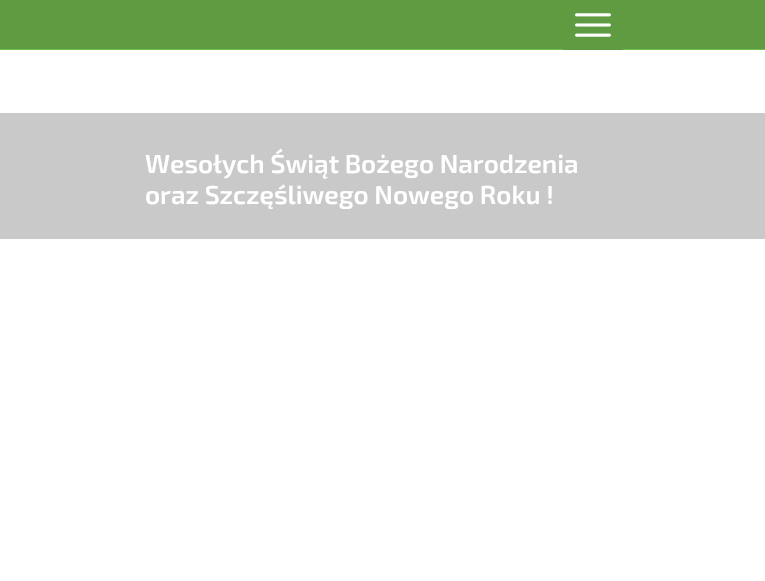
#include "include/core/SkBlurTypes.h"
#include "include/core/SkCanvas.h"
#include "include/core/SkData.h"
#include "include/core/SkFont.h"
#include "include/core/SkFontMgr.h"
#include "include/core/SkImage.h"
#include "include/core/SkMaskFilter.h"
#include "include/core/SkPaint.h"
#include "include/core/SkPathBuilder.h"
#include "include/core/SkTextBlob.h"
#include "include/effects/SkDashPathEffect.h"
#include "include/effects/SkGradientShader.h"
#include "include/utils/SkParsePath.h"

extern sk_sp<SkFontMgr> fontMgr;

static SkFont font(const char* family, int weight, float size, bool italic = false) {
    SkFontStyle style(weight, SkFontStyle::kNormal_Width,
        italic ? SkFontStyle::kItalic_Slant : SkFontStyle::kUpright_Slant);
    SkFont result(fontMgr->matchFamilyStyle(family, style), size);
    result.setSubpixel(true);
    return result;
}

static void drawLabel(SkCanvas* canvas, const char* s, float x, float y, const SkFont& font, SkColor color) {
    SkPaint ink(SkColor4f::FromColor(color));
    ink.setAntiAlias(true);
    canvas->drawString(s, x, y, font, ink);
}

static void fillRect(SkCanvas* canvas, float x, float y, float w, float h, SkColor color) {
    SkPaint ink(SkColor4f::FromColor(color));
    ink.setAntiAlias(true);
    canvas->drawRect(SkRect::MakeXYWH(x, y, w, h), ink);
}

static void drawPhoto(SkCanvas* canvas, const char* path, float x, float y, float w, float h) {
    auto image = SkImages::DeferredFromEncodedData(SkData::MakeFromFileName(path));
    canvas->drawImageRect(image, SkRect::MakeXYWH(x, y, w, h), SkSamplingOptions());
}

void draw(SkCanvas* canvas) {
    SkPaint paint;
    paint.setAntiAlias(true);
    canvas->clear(0xFFFFFFFF);
    fillRect(canvas, 0, 0, 765, 49, 0xFF5F9C41);
    fillRect(canvas, 0, 49, 765, 1, 0xFF70BF4A);
    fillRect(canvas, 563, 49, 60, 1, 0xFF5F9C41);
    drawPhoto(canvas, "assets/img1.png", 575, 13, 36, 24);
    fillRect(canvas, 0, 113, 765, 126, 0xFFC9C9C9);
    SkFont font1 = font("Exo 2", 600, 26);
    drawLabel(canvas, "Wesołych Świąt Bożego Narodzenia", 145, 173, font1, 0xFFFFFFFF);
    drawLabel(canvas, "oraz Szczęśliwego Nowego Roku !", 145, 204, font1, 0xFFFFFFFF);
}
